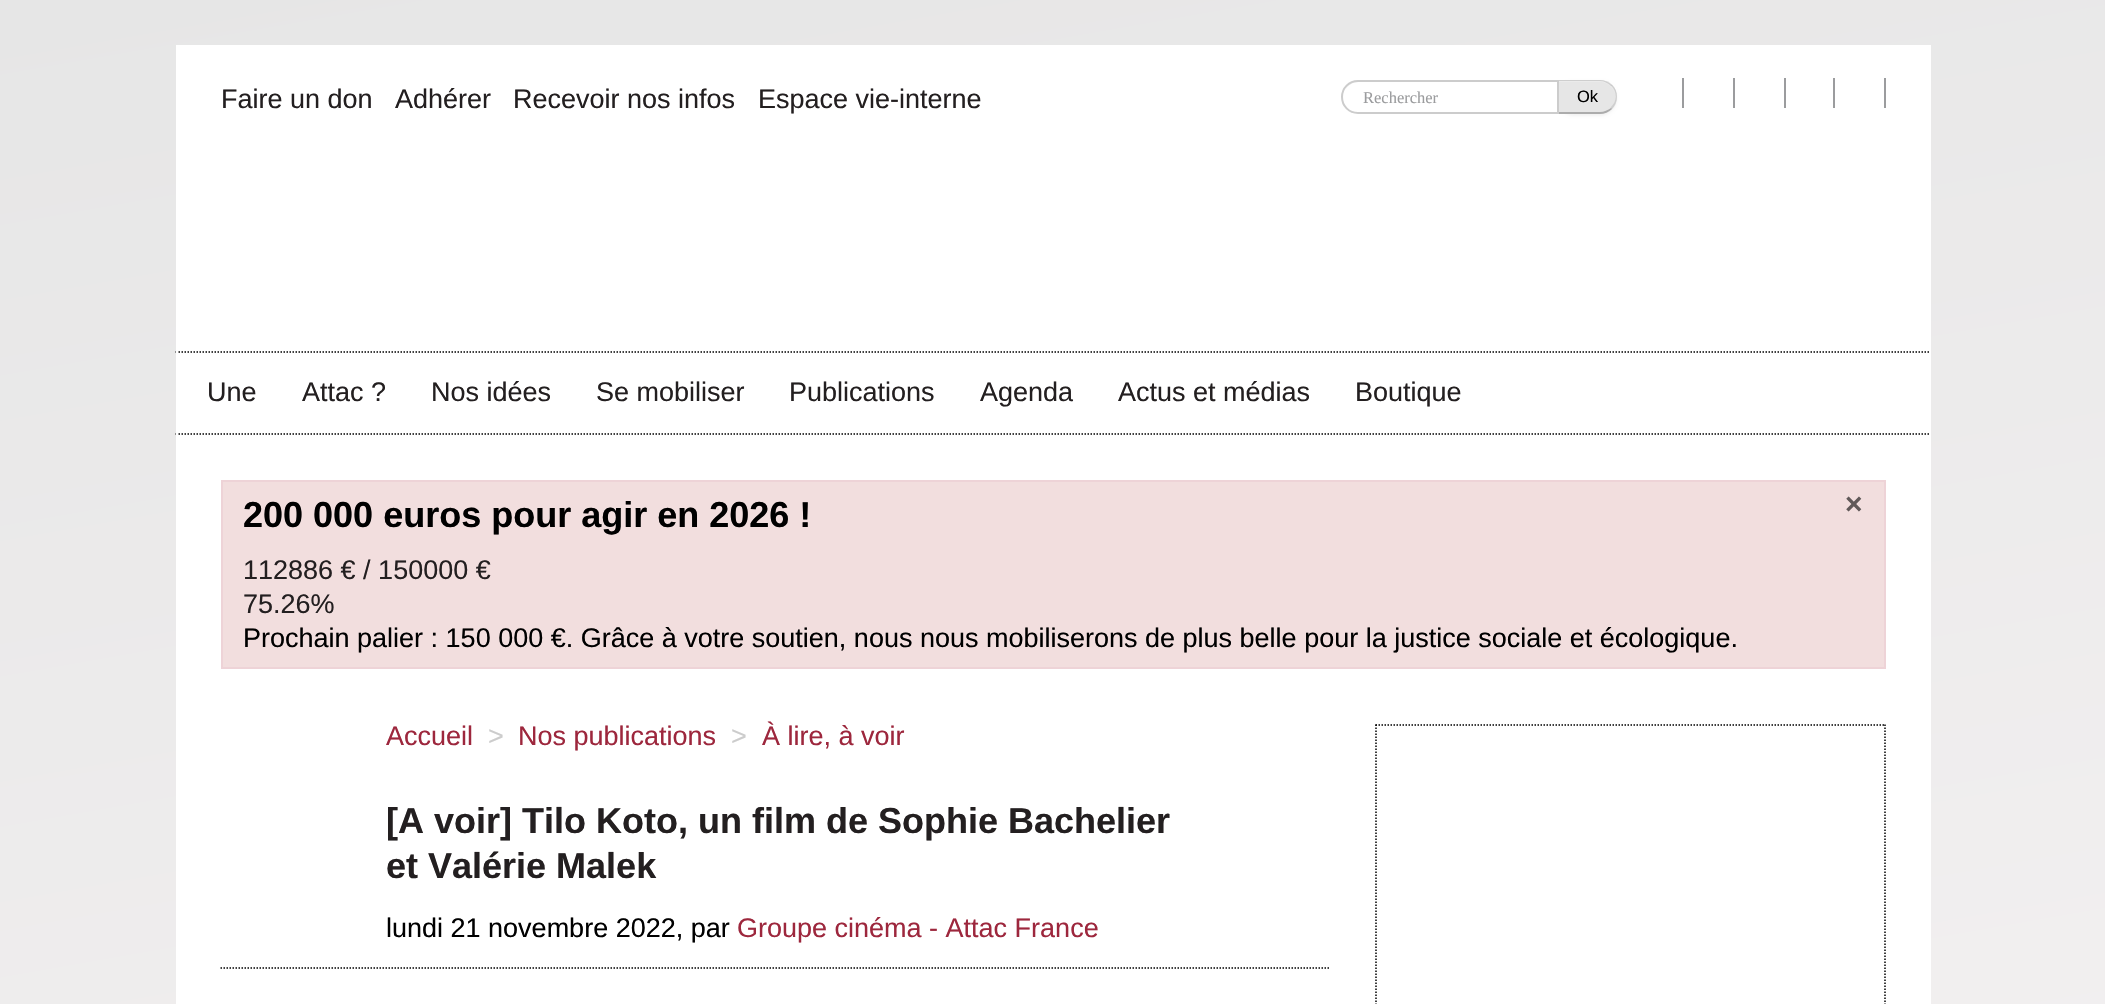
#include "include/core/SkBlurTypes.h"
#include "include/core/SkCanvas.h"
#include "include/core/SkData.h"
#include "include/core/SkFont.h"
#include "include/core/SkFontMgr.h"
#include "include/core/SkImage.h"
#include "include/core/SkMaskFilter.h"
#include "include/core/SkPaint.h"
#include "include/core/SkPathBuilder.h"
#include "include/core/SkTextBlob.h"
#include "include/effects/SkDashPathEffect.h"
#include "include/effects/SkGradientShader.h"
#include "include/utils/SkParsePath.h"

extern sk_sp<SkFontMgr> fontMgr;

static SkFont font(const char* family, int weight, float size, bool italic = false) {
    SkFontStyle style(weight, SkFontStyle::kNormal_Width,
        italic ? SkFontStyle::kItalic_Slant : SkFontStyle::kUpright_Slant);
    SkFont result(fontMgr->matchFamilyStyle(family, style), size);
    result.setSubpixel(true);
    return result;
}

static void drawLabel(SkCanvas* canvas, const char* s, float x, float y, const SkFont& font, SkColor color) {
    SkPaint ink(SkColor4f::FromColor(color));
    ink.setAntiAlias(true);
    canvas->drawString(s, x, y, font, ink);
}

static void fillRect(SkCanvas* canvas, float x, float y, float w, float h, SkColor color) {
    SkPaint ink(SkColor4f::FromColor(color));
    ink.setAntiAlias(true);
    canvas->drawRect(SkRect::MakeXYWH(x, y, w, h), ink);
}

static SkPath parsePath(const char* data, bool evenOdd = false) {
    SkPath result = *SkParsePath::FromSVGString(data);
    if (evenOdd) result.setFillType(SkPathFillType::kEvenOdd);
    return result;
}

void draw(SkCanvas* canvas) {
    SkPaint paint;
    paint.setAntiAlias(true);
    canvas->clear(0xFFFFFFFF);
    {
        const SkColor colors[] = {0xFFE6E6E6, 0xFFFFFAFB, 0xFFF4ECEC};
        const float stops[] = {0, 0.72f, 1};
        const SkPoint ends[] = {{696, -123}, {1410, 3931}};
        paint.setShader(SkGradientShader::MakeLinear(ends, colors, stops, 3, SkTileMode::kClamp));
        paint.setAlpha(255);
    }
    canvas->drawRect(SkRect::MakeXYWH(0, 0, 2105, 1004), paint);
    fillRect(canvas, 176, 45, 1755, 959, 0xFFFFFFFF);
    SkFont font1 = font("Liberation Sans", 400, 27);
    drawLabel(canvas, "Faire un don", 221, 108, font1, 0xFF231F20);
    drawLabel(canvas, "Adhérer", 395, 108, font1, 0xFF231F20);
    drawLabel(canvas, "Recevoir nos infos", 513, 108, font1, 0xFF231F20);
    drawLabel(canvas, "Espace vie-interne", 758, 108, font1, 0xFF231F20);
    paint.setShader(nullptr);
    paint.setColor(0x0D000000);
    paint.setMaskFilter(SkMaskFilter::MakeBlur(kNormal_SkBlurStyle, 1.5f));
    canvas->drawRoundRect(SkRect::MakeXYWH(1557, 81, 60, 35), 17.5f, 17.5f, paint);
    paint.setMaskFilter(nullptr);
    paint.setColor(0xFFE6E6E6);
    canvas->drawPath(parsePath("M1557 80H1600C1609.5 80 1617 87.5 1617 97C1617 106.5 1609.5 114 1600 114H1557Z"), paint);
    canvas->save();
    canvas->clipPath(parsePath("M1557 80H1600C1609.5 80 1617 87.5 1617 97C1617 106.5 1609.5 114 1600 114H1557Z"), true);
    fillRect(canvas, 1559, 81, 58, 32, 0xFFE6E6E6);
    canvas->restore();
    paint.setColor(0xFFEBEBEB);
    canvas->drawPath(parsePath("M1559 81V82H1600C1608 82 1616 90 1616 98C1616 89 1609 81 1600 81Z"), paint);
    paint.setColor(0x1A000000);
    canvas->drawPath(parsePath("M1612 85C1609 82 1604 80 1600 80H1558V81H1600C1604 81 1608 83 1611 86Z"), paint);
    canvas->drawPath(parsePath("M1612 84.5C1618.5 91 1618.5 102 1612 109L1610.5 107.5C1617.5 101.5 1617.5 92 1611 85.5Z"), paint);
    paint.setColor(0x40000000);
    canvas->drawPath(parsePath("M1600 114C1604 114 1609 112 1612 109L1611 108C1608 110 1604 112 1600 112H1559L1557 114Z"), paint);
    paint.setColor(0xFFFFFFFF);
    canvas->drawPath(parsePath("M1358 80H1559V114H1358C1348.5 114 1341 106.5 1341 97C1341 87.5 1348.5 80 1358 80Z"), paint);
    paint.setColor(0xFFECECEC);
    canvas->drawPath(parsePath("M1358 82H1557V81H1359C1353 81 1347 85 1345 90C1348 85 1353 82 1358 82Z"), paint);
    paint.setStroke(true);
    paint.setStrokeWidth(2);
    paint.setColor(0xFFCCCCCC);
    canvas->drawPath(parsePath("M1358 81H1558V113H1358C1349 113 1342 106 1342 97C1342 88 1349 81 1358 81Z"), paint);
    SkFont font2 = font("Liberation Serif", 400, 16.5f);
    drawLabel(canvas, "Rechercher", 1363, 103, font2, 0xFF9B9C9E);
    SkFont font3 = font("Liberation Sans", 400, 16.5f);
    drawLabel(canvas, "Ok", 1577, 102, font3, 0xFF000000);
    fillRect(canvas, 1682, 78, 2, 30, 0xFF9B9C9E);
    fillRect(canvas, 1733, 78, 2, 30, 0xFF9B9C9E);
    fillRect(canvas, 1784, 78, 2, 30, 0xFF9B9C9E);
    fillRect(canvas, 1833, 78, 2, 30, 0xFF9B9C9E);
    fillRect(canvas, 1884, 78, 2, 30, 0xFF9B9C9E);
    paint.setStrokeWidth(1.5f);
    paint.setColor(0xFF000000);
    paint.setPathEffect(SkDashPathEffect::Make({{1.5f, 1.5f}}, 0));
    canvas->drawPath(parsePath("M175.5 352H1930.5"), paint);
    paint.setPathEffect(nullptr);
    paint.setPathEffect(SkDashPathEffect::Make({{1.5f, 1.5f}}, 0));
    canvas->drawPath(parsePath("M175.5 434H1930.5"), paint);
    paint.setPathEffect(nullptr);
    fillRect(canvas, 176, 351, 1, 84, 0xFFFFFFFF);
    drawLabel(canvas, "Une", 207, 401, font1, 0xFF231F20);
    drawLabel(canvas, "Attac ?", 302, 401, font1, 0xFF231F20);
    drawLabel(canvas, "Nos idées", 431, 401, font1, 0xFF231F20);
    drawLabel(canvas, "Se mobiliser", 596, 401, font1, 0xFF231F20);
    drawLabel(canvas, "Publications", 789, 401, font1, 0xFF231F20);
    drawLabel(canvas, "Agenda", 980, 401, font1, 0xFF231F20);
    drawLabel(canvas, "Actus et médias", 1118, 401, font1, 0xFF231F20);
    drawLabel(canvas, "Boutique", 1355, 401, font1, 0xFF231F20);
    paint.setStroke(false);
    paint.setColor(0xFFF2DEDE);
    canvas->drawRect(SkRect::MakeXYWH(222, 481, 1663, 187), paint);
    paint.setStroke(true);
    paint.setStrokeWidth(2);
    paint.setColor(0xFFEED3D7);
    canvas->drawRect(SkRect::MakeXYWH(222, 481, 1663, 187), paint);
    SkFont font4 = font("Liberation Sans", 700, 36);
    drawLabel(canvas, "200 000 euros pour agir en 2026 !", 243, 527, font4, 0xFF000000);
    SkFont font5 = font("Liberation Sans", 700, 30);
    drawLabel(canvas, "×", 1845, 514, font5, 0xFF615959);
    drawLabel(canvas, "112886 € / 150000 €", 243, 579, font1, 0xFF231F20);
    drawLabel(canvas, "75.26%", 243, 613, font1, 0xFF231F20);
    drawLabel(canvas, "Prochain palier : 150 000 €. Grâce à votre soutien, nous nous mobiliserons de plus belle pour la justice sociale et écologique.", 243, 647, font1, 0xFF000000);
    drawLabel(canvas, "Accueil", 386, 745, font1, 0xFF9D273D);
    drawLabel(canvas, ">", 488, 745, font1, 0xFFCCCCCC);
    drawLabel(canvas, "Nos publications", 518, 745, font1, 0xFF9D273D);
    drawLabel(canvas, ">", 731, 745, font1, 0xFFCCCCCC);
    drawLabel(canvas, "À lire, à voir", 762, 745, font1, 0xFF9D273D);
    drawLabel(canvas, "[A voir] Tilo Koto, un film de Sophie Bachelier", 386, 833, font4, 0xFF231F20);
    drawLabel(canvas, "et Valérie Malek", 386, 878, font4, 0xFF231F20);
    drawLabel(canvas, "lundi 21 novembre 2022, par", 386, 937, font1, 0xFF000000);
    drawLabel(canvas, "Groupe cinéma - Attac France", 737, 937, font1, 0xFF9D273D);
    paint.setStrokeWidth(1.5f);
    paint.setColor(0xFF000000);
    paint.setPathEffect(SkDashPathEffect::Make({{1.5f, 1.5f}}, 0));
    canvas->drawPath(parsePath("M220.5 968H1330.5"), paint);
    paint.setPathEffect(nullptr);
    paint.setPathEffect(SkDashPathEffect::Make({{1.5f, 1.5f}}, 0));
    canvas->drawPath(parsePath("M1375.5 725H1885.5"), paint);
    paint.setPathEffect(nullptr);
    paint.setPathEffect(SkDashPathEffect::Make({{1.5f, 1.5f}}, 0));
    canvas->drawPath(parsePath("M1885 724.5V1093.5"), paint);
    paint.setPathEffect(nullptr);
    paint.setPathEffect(SkDashPathEffect::Make({{1.5f, 1.5f}}, 0));
    canvas->drawPath(parsePath("M1376 724.5V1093.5"), paint);
    paint.setPathEffect(nullptr);
}
